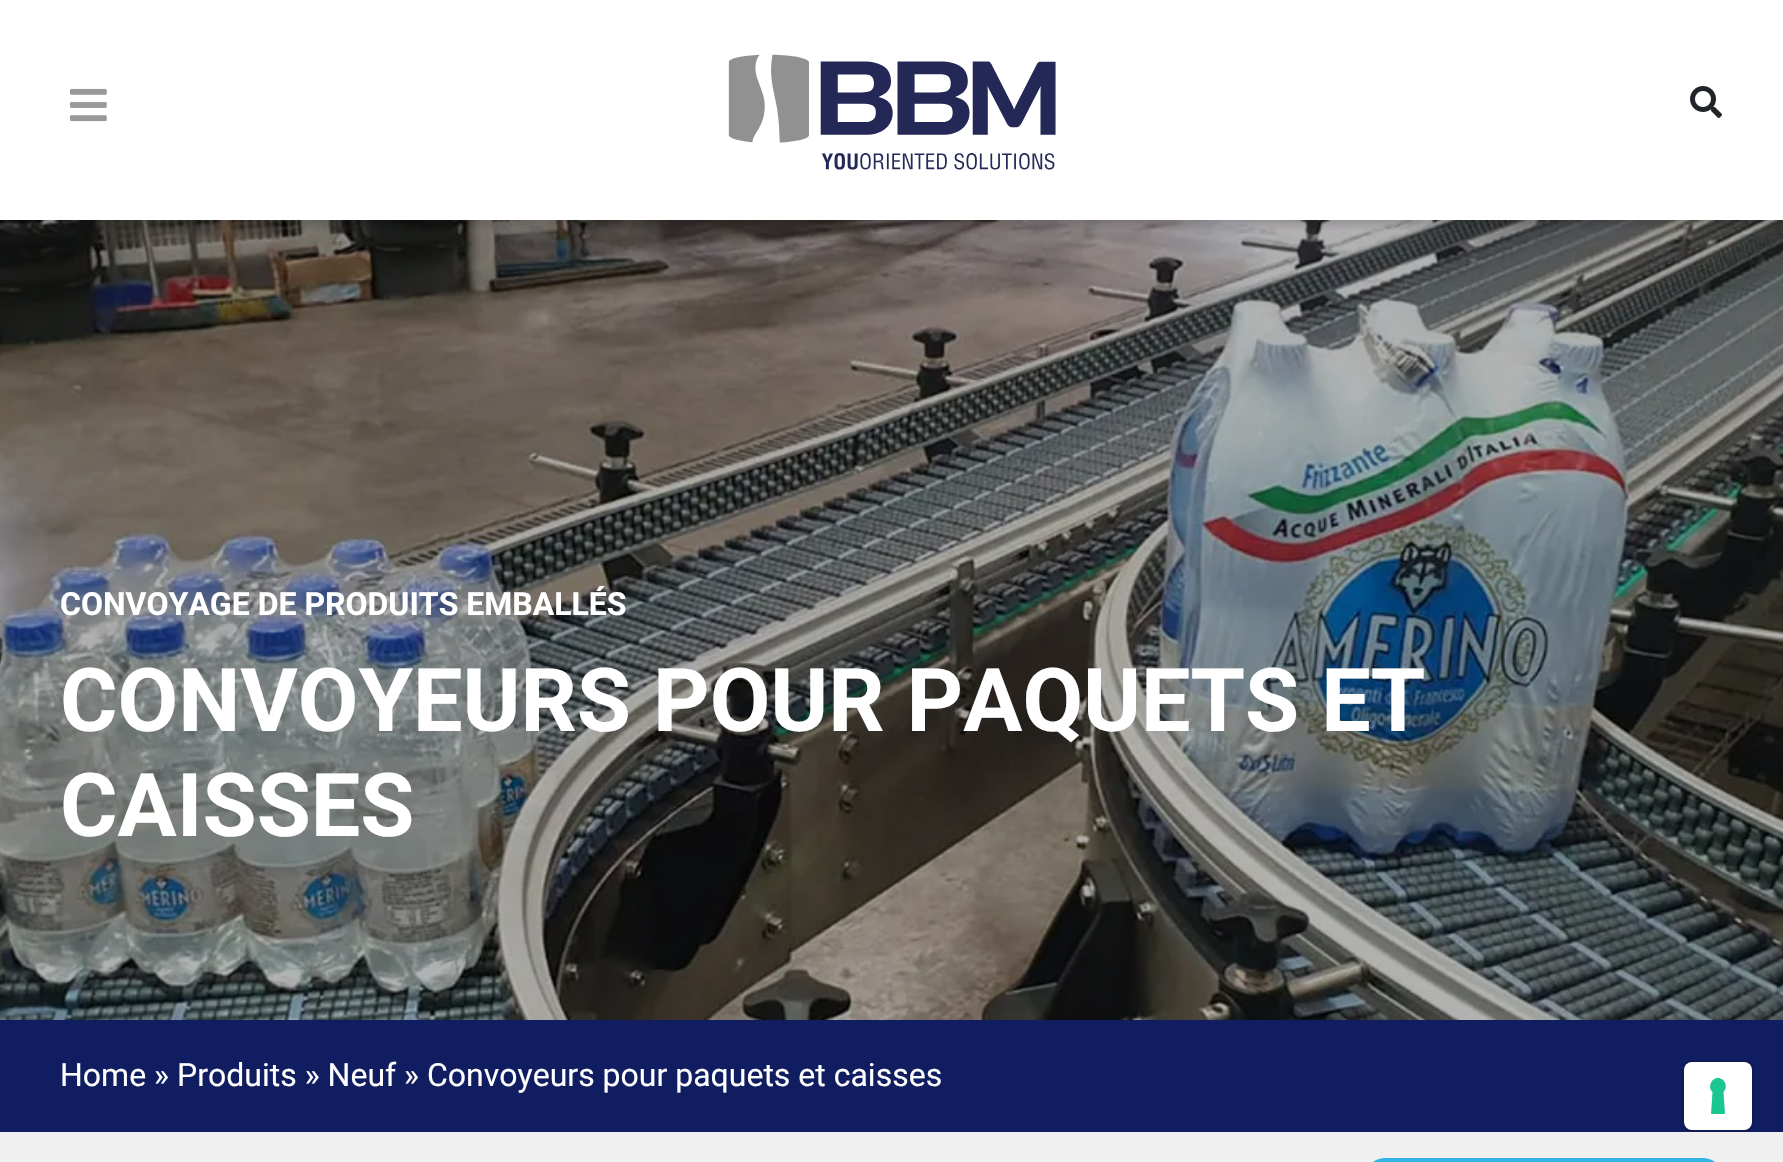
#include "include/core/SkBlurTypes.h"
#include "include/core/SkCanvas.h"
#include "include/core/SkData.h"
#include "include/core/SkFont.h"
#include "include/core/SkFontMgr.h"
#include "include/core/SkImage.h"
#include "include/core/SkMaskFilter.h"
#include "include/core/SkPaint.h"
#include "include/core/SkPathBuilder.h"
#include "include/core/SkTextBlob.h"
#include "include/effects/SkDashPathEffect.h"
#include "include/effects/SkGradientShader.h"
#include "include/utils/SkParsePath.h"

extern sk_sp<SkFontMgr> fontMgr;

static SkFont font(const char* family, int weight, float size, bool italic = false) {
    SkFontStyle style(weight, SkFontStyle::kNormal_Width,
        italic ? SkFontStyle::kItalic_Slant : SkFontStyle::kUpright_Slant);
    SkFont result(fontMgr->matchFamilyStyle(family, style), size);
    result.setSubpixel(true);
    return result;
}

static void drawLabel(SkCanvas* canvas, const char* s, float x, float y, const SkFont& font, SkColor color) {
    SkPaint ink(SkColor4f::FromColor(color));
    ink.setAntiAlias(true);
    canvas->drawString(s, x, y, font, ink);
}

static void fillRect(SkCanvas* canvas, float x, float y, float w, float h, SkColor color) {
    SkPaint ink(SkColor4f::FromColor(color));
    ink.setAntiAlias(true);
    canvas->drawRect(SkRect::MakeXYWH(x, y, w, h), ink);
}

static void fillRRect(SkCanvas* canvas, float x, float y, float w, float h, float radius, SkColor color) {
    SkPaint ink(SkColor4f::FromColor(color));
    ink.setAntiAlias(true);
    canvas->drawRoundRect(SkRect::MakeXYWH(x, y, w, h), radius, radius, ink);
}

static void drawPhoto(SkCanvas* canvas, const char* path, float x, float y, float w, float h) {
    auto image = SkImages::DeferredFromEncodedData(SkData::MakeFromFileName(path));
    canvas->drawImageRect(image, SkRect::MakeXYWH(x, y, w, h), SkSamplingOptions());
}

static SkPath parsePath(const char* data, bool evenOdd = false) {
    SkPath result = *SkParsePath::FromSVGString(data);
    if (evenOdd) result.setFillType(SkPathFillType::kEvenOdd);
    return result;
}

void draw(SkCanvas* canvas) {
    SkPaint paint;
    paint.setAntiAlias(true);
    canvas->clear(0xFFFFFFFF);
    drawPhoto(canvas, "assets/img4.png", 0, 220, 1783, 800);
    canvas->save();
    canvas->clipRect(SkRect::MakeXYWH(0, 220, 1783, 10));
    paint.setColor(0x33000000);
    paint.setMaskFilter(SkMaskFilter::MakeBlur(kNormal_SkBlurStyle, 5));
    canvas->drawRect(SkRect::MakeXYWH(0, 4, 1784, 220), paint);
    paint.setMaskFilter(nullptr);
    canvas->restore();
    drawPhoto(canvas, "assets/img1.png", 70, 88, 37, 34);
    drawPhoto(canvas, "assets/img2.png", 728, 54, 328, 116);
    drawPhoto(canvas, "assets/img3.png", 1690, 86, 32, 32);
    SkFont font1 = font("Roboto", 700, 32);
    drawLabel(canvas, "CONVOYAGE DE PRODUITS EMBALLÉS", 60, 615, font1, 0xFFFFFFFF);
    SkFont font2 = font("Roboto", 700, 88);
    drawLabel(canvas, "CONVOYEURS POUR PAQUETS ET", 60, 731, font2, 0xFFFFFFFF);
    drawLabel(canvas, "CAISSES", 60, 836, font2, 0xFFFFFFFF);
    fillRect(canvas, 0, 1020, 1783, 112, 0xFF101E61);
    SkFont font3 = font("Roboto", 400, 32);
    drawLabel(canvas, "Home » Produits » Neuf » Convoyeurs pour paquets et caisses", 60, 1086, font3, 0xFFFFFFFF);
    fillRect(canvas, 0, 1132, 1783, 30, 0xFFF0F0F0);
    paint.setColor(0xFF2FB4E5);
    canvas->drawRoundRect(SkRect::MakeXYWH(1365, 1159, 358, 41), 36, 36, paint);
    paint.setStroke(true);
    paint.setStrokeWidth(2);
    canvas->drawRoundRect(SkRect::MakeXYWH(1365, 1159, 358, 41), 36, 36, paint);
    paint.setColor(0xFF0E1A52);
    canvas->drawRoundRect(SkRect::MakeXYWH(1683, 1061, 70, 70), 9, 9, paint);
    fillRRect(canvas, 1684, 1062, 68, 68, 8, 0xFFFFFFFF);
    paint.setStroke(false);
    paint.setColor(0xFF1CC691);
    canvas->drawPath(parsePath("M1718 1078C1725 1078 1728.5 1087.5 1723.5 1092L1725 1114H1711L1712.5 1092C1707.5 1087.5 1711 1078 1718 1078Z", true), paint);
}
